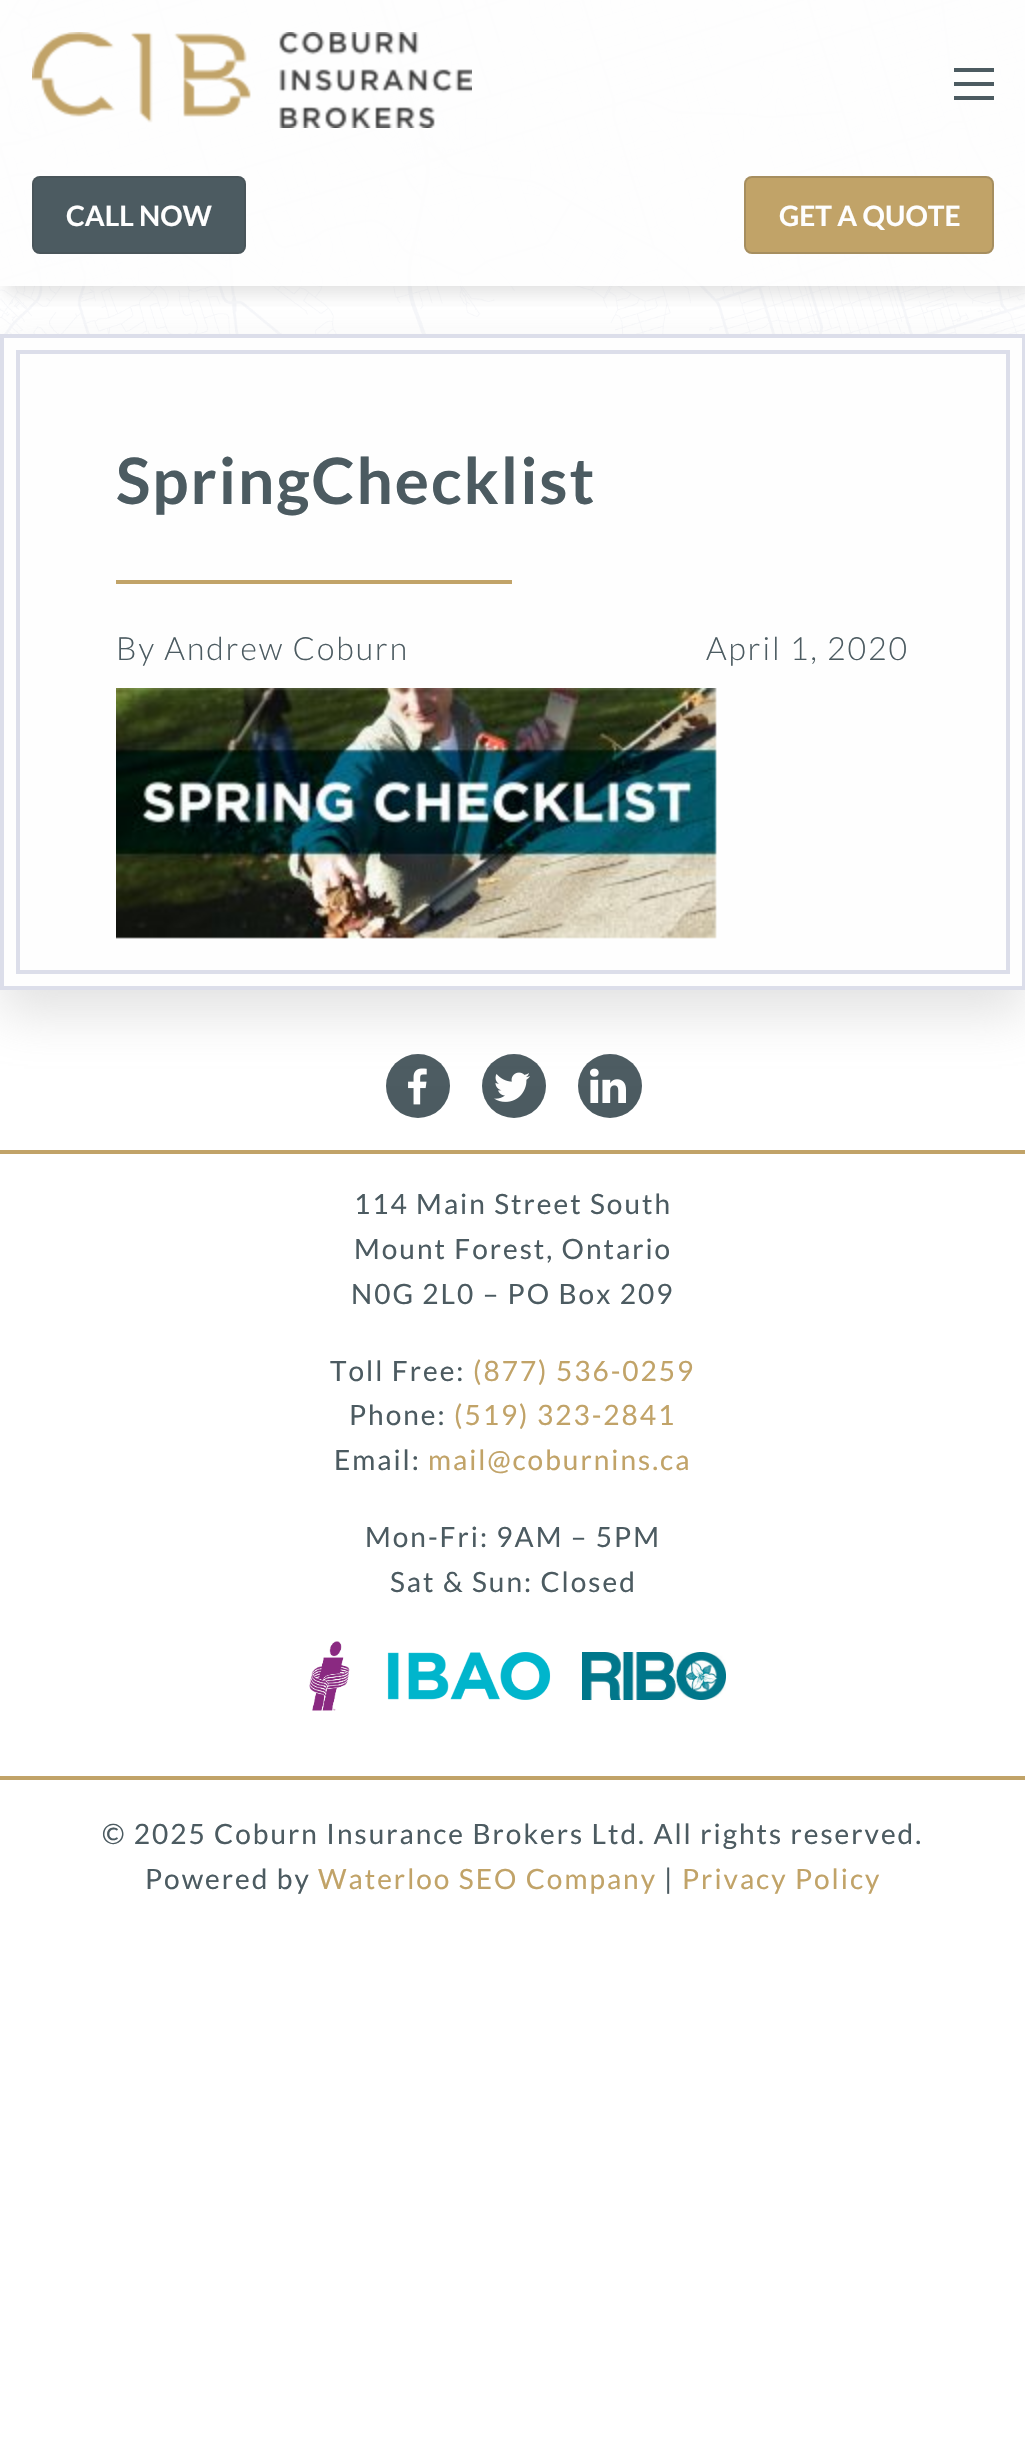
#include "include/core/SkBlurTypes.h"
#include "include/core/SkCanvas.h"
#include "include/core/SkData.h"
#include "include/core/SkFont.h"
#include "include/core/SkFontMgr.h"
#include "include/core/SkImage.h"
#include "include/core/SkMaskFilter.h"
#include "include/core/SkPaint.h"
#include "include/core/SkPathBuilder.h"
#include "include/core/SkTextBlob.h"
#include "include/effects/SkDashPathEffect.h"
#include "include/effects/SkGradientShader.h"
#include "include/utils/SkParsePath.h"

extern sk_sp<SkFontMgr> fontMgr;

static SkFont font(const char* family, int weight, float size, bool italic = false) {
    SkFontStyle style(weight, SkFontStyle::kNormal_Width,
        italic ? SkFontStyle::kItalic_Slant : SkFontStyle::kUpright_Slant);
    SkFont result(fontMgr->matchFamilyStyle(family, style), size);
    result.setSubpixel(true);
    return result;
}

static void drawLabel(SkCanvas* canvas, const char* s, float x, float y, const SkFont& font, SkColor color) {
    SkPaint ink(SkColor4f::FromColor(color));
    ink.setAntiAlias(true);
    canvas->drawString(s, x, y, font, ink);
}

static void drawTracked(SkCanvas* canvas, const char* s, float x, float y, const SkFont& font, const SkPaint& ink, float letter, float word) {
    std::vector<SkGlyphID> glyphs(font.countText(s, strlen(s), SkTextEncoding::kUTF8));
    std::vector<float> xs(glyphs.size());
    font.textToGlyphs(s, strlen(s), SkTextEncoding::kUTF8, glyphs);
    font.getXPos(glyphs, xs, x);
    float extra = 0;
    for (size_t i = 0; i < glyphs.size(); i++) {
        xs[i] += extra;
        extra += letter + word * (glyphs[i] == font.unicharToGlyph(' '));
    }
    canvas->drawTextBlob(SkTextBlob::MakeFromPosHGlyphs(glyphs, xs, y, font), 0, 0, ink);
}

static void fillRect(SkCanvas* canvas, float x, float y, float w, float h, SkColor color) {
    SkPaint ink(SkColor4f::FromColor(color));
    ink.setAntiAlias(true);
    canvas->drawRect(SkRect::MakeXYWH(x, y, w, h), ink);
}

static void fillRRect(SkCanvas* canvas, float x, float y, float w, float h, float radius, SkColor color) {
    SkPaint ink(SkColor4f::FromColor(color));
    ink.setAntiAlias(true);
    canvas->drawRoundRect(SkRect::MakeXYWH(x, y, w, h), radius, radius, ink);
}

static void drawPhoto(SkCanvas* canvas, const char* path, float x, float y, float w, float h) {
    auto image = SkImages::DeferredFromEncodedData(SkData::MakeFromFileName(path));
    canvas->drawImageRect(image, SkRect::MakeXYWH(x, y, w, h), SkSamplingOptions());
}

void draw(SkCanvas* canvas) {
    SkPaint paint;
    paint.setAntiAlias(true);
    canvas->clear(0xFFFFFFFF);
    drawPhoto(canvas, "assets/img1.png", 0, 0, 1025, 334);
    canvas->save();
    canvas->clipRect(SkRect::MakeXYWH(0, 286, 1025, 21));
    paint.setColor(0x66B6B6B6);
    paint.setMaskFilter(SkMaskFilter::MakeBlur(kNormal_SkBlurStyle, 8));
    canvas->drawRect(SkRect::MakeXYWH(6, 8, 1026, 286), paint);
    paint.setMaskFilter(nullptr);
    canvas->restore();
    paint.setColor(0xFF4C5B61);
    canvas->drawCircle(418, 1086, 32, paint);
    drawPhoto(canvas, "assets/img4.png", 408, 1068, 19, 37);
    canvas->drawCircle(514, 1086, 32, paint);
    drawPhoto(canvas, "assets/img5.png", 494, 1072, 36, 30);
    canvas->drawCircle(610, 1086, 32, paint);
    drawPhoto(canvas, "assets/img6.png", 590, 1068, 36, 35);
    paint.setColor(0x66B6B6B6);
    paint.setMaskFilter(SkMaskFilter::MakeBlur(kNormal_SkBlurStyle, 24));
    canvas->drawRect(SkRect::MakeXYWH(0, 358, 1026, 656), paint);
    paint.setMaskFilter(nullptr);
    fillRect(canvas, 0, 0, 1025, 286, 0xCCFEFEFE);
    drawPhoto(canvas, "assets/img2.png", 32, 32, 440, 96);
    fillRect(canvas, 954, 96, 40, 4, 0xFF4C5B61);
    fillRect(canvas, 954, 82, 40, 4, 0xFF4C5B61);
    fillRect(canvas, 954, 68, 40, 4, 0xFF4C5B61);
    fillRRect(canvas, 32, 176, 214, 78, 8, 0xFF4C5B61);
    paint.setStroke(true);
    paint.setStrokeWidth(2);
    paint.setColor(0x333A3A3A);
    canvas->drawRoundRect(SkRect::MakeXYWH(33, 177, 212, 76), 7, 7, paint);
    SkFont font1 = font("Lato", 700, 28);
    drawLabel(canvas, "CALL NOW", 66, 226, font1, 0xFFFEFEFE);
    fillRRect(canvas, 744, 176, 250, 78, 8, 0xFFC1A368);
    canvas->drawRoundRect(SkRect::MakeXYWH(745, 177, 248, 76), 7, 7, paint);
    drawLabel(canvas, "GET A QUOTE", 779, 226, font1, 0xFFFEFEFE);
    paint.setStroke(false);
    paint.setColor(0xFFFEFEFE);
    canvas->drawRect(SkRect::MakeXYWH(2, 336, 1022, 652), paint);
    paint.setStroke(true);
    paint.setStrokeWidth(4);
    paint.setColor(0xFFDCDEEA);
    canvas->drawRect(SkRect::MakeXYWH(2, 336, 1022, 652), paint);
    canvas->drawRect(SkRect::MakeXYWH(18, 352, 990, 620), paint);
    SkFont font2 = font("Lato", 700, 64);
    paint.setStroke(false);
    paint.setColor(0xFF4C5B61);
    drawTracked(canvas, "SpringChecklist", 116, 504, font2, paint, 2, 0);
    fillRect(canvas, 116, 580, 396, 4, 0xFFC1A368);
    SkFont font3 = font("Lato", 300, 32);
    drawTracked(canvas, "By Andrew Coburn", 116, 660, font3, paint, 2, 0);
    drawTracked(canvas, "April 1, 2020", 706, 660, font3, paint, 2, 0);
    drawPhoto(canvas, "assets/img3.png", 116, 688, 601, 251);
    fillRect(canvas, 0, 1150, 1025, 4, 0xFFC1A368);
    fillRect(canvas, 0, 1776, 1025, 4, 0xFFC1A368);
    SkFont font4 = font("Lato", 400, 28);
    drawTracked(canvas, "114 Main Street South", 354, 1214, font4, paint, 2, 0);
    drawTracked(canvas, "Mount Forest, Ontario", 354, 1259, font4, paint, 2, 0);
    drawTracked(canvas, "N0G 2L0 – PO Box 209", 351, 1304, font4, paint, 2, 0);
    drawTracked(canvas, "Toll Free:", 330, 1381, font4, paint, 2, 0);
    paint.setColor(0xFFC1A368);
    drawTracked(canvas, "(877) 536-0259", 473, 1381, font4, paint, 2, 0);
    paint.setColor(0xFF4C5B61);
    drawTracked(canvas, "Phone:", 349, 1425, font4, paint, 2, 0);
    paint.setColor(0xFFC1A368);
    drawTracked(canvas, "(519) 323-2841", 454, 1425, font4, paint, 2, 0);
    paint.setColor(0xFF4C5B61);
    drawTracked(canvas, "Email:", 334, 1470, font4, paint, 2, 0);
    paint.setColor(0xFFC1A368);
    drawTracked(canvas, "mail@coburnins.ca", 428, 1470, font4, paint, 2, 0);
    paint.setColor(0xFF4C5B61);
    drawTracked(canvas, "Mon-Fri: 9AM – 5PM", 365, 1547, font4, paint, 2, 0);
    drawTracked(canvas, "Sat & Sun: Closed", 390, 1592, font4, paint, 2, 0);
    drawPhoto(canvas, "assets/img7.png", 309, 1641, 41, 70);
    drawPhoto(canvas, "assets/img8.png", 387, 1652, 164, 48);
    drawPhoto(canvas, "assets/img9.png", 582, 1652, 144, 48);
    drawTracked(canvas, "© 2025 Coburn Insurance Brokers Ltd. All rights reserved.", 102, 1844, font4, paint, 2, 0);
    drawTracked(canvas, "Powered by", 145, 1889, font4, paint, 2, 0);
    paint.setColor(0xFFC1A368);
    drawTracked(canvas, "Waterloo SEO Company", 318, 1889, font4, paint, 2, 0);
    paint.setColor(0xFF4C5B61);
    drawTracked(canvas, "|", 664, 1889, font4, paint, 2, 0);
    paint.setColor(0xFFC1A368);
    drawTracked(canvas, "Privacy Policy", 682, 1889, font4, paint, 2, 0);
}
